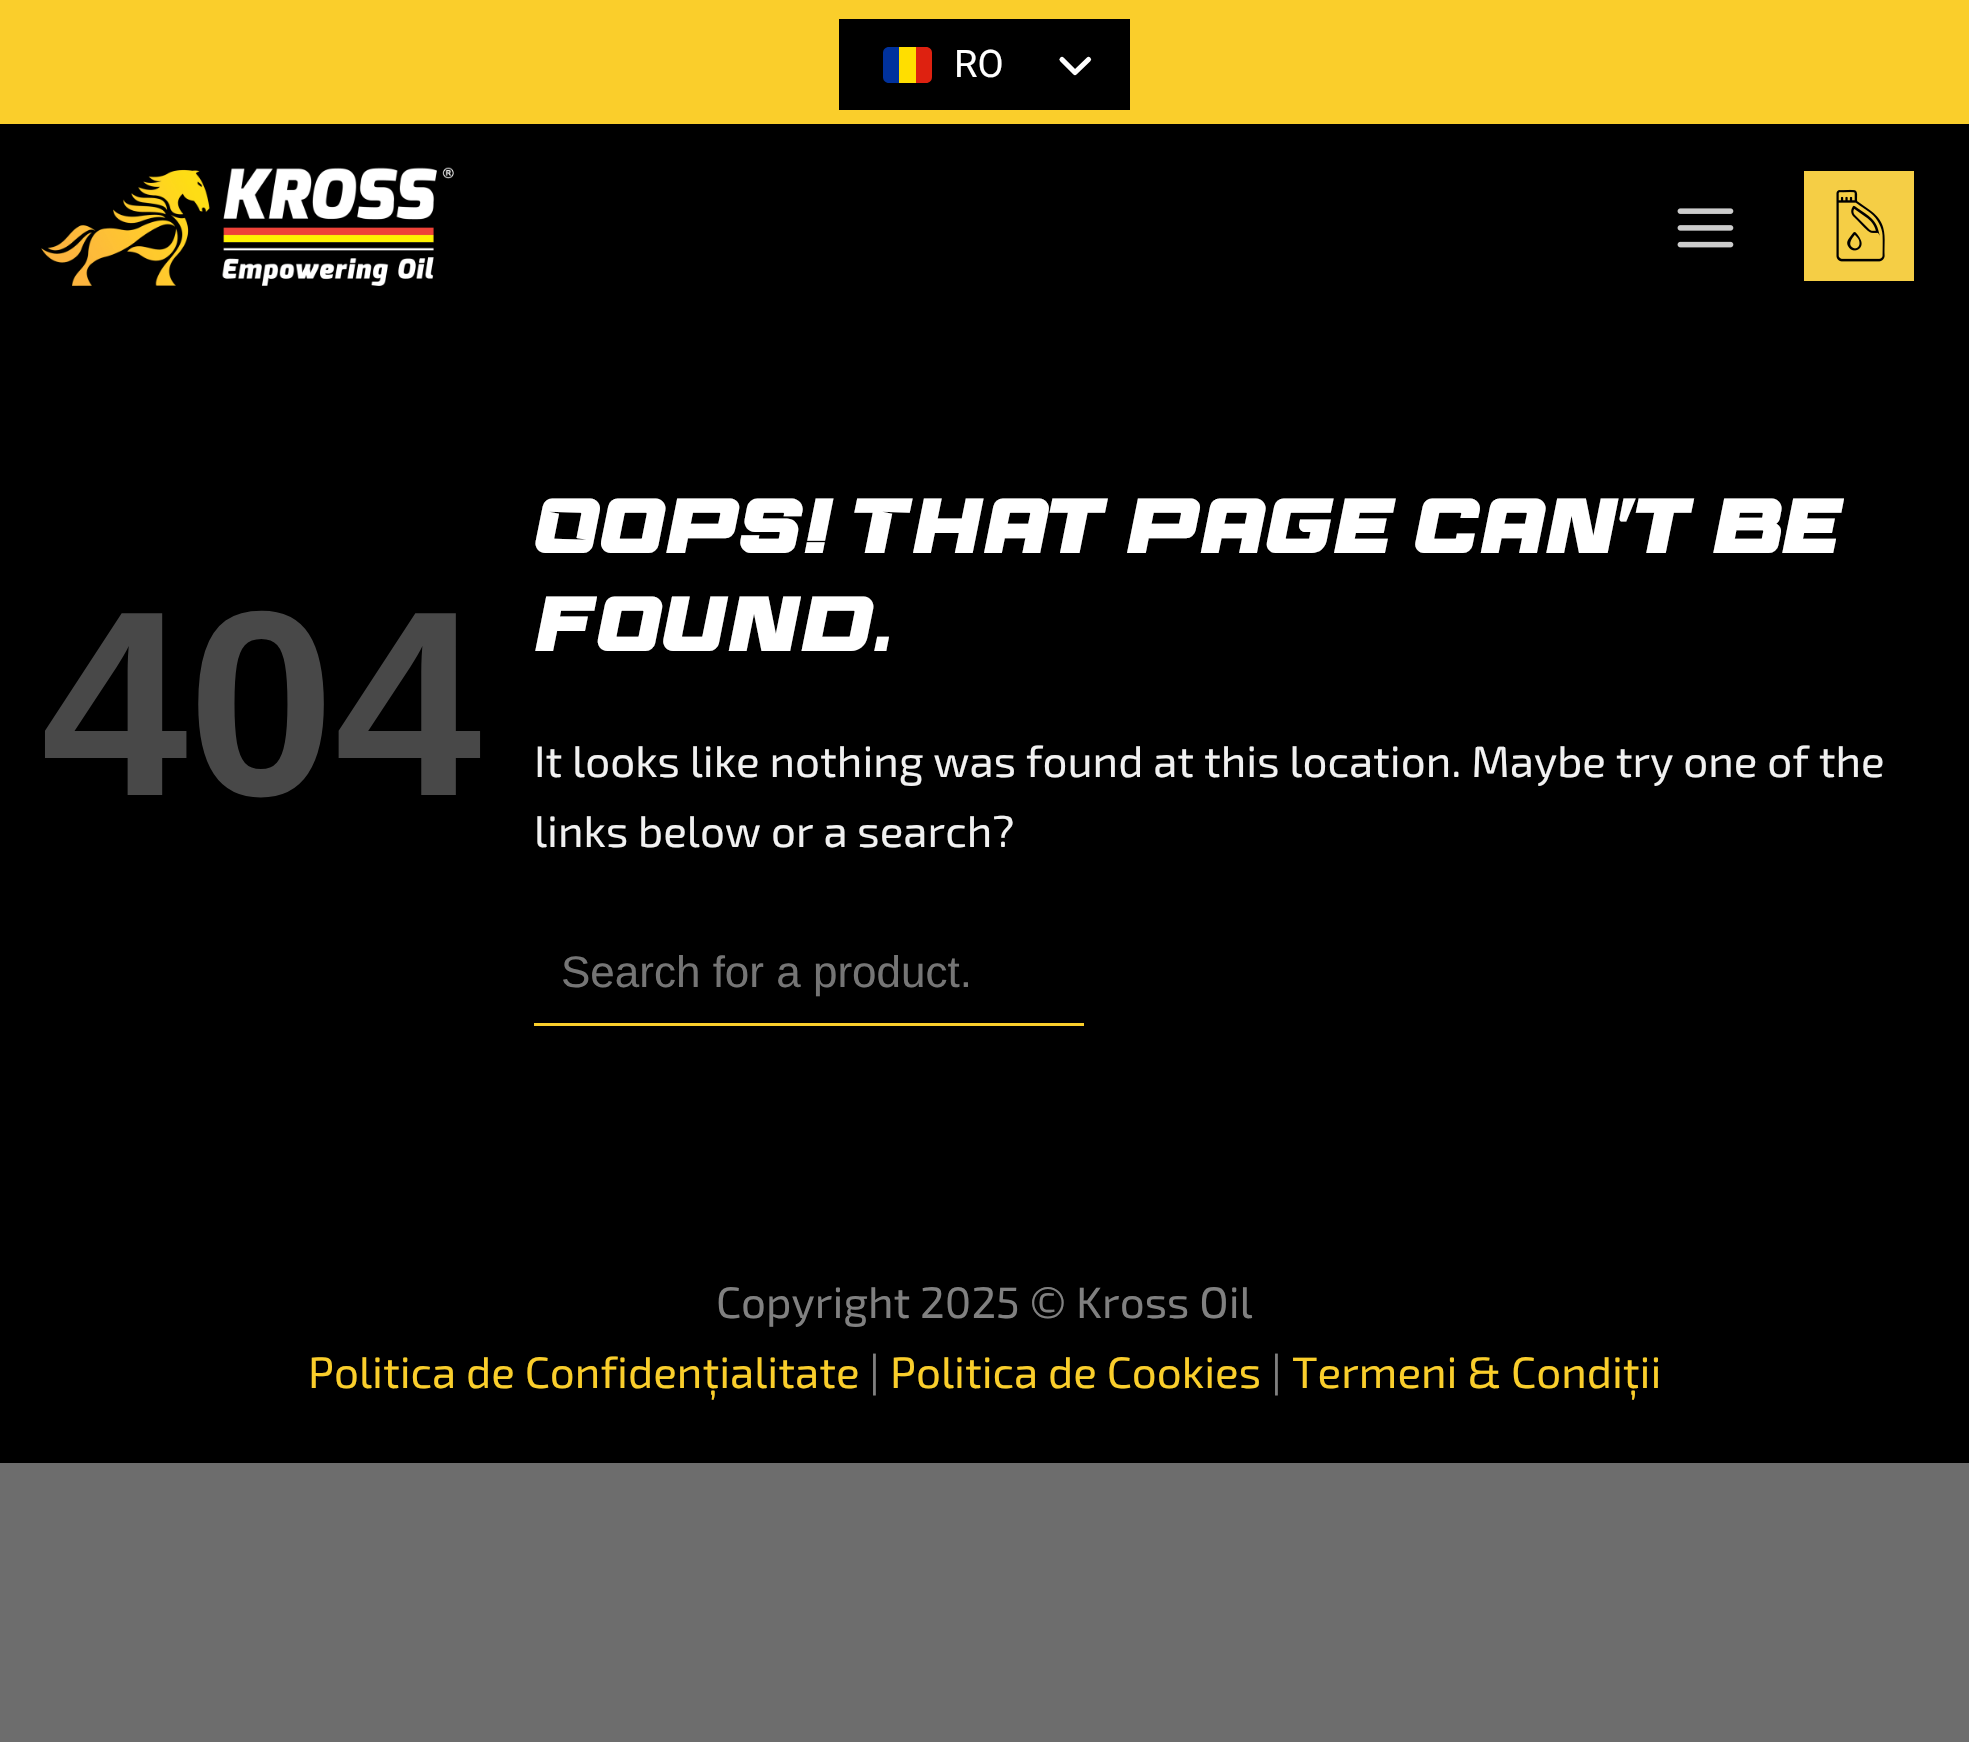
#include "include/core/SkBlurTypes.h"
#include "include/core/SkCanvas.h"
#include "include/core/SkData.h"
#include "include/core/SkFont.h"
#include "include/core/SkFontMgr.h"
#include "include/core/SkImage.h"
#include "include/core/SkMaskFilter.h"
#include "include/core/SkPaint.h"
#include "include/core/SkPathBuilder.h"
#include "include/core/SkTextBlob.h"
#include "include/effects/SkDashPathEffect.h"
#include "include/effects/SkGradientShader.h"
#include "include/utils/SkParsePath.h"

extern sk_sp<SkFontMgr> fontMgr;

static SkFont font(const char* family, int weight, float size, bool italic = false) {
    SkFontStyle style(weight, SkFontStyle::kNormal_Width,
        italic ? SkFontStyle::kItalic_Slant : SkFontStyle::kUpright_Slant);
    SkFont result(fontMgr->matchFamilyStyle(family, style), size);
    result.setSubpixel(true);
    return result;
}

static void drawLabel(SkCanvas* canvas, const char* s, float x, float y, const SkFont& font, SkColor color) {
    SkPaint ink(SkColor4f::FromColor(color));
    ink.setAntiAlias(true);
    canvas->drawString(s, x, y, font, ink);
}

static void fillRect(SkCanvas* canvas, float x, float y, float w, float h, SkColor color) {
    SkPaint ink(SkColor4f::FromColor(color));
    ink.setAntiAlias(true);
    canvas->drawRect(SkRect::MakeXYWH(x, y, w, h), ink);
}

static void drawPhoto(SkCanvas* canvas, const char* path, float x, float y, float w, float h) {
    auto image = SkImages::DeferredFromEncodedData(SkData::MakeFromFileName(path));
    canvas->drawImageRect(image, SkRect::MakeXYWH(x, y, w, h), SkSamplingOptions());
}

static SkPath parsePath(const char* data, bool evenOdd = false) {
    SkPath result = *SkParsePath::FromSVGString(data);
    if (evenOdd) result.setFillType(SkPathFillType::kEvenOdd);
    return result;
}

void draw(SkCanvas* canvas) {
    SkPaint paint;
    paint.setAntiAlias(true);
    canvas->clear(0xFF6D6D6D);
    fillRect(canvas, 0, 124, 1969, 1339, 0xFF000000);
    fillRect(canvas, 0, 0, 1969, 124, 0xFFFACE2B);
    fillRect(canvas, 839, 19, 291, 91, 0xFF000000);
    paint.setColor(0xFF00319C);
    canvas->drawPath(parsePath("M889 47H899V83H889C885.5 83 883 80.5 883 77V53C883 49.5 885.5 47 889 47Z"), paint);
    fillRect(canvas, 899, 47, 17, 36, 0xFFFFDE00);
    paint.setColor(0xFFDE2110);
    canvas->drawPath(parsePath("M916 47H926C929.5 47 932 49.5 932 53V77C932 80.5 929.5 83 926 83H916Z"), paint);
    SkFont font1 = font("Roboto", 400, 38);
    drawLabel(canvas, "RO", 954, 77, font1, 0xFFFFFFFF);
    paint.setStroke(true);
    paint.setStrokeWidth(5.2f);
    paint.setStrokeCap(SkPaint::kRound_Cap);
    paint.setStrokeJoin(SkPaint::kRound_Join);
    paint.setColor(0xFFFFFFFF);
    canvas->drawPath(parsePath("M1062 59.5L1075 72.5L1088.5 59.5"), paint);
    drawPhoto(canvas, "assets/img1.png", 41, 167, 413, 119);
    drawPhoto(canvas, "assets/img2.png", 1677, 208, 57, 40);
    fillRect(canvas, 1804, 171, 110, 110, 0xFFF5CE45);
    drawPhoto(canvas, "assets/img3.png", 1836, 189, 49, 73);
    SkFont font2 = font("Liberation Sans", 700, 264);
    drawLabel(canvas, "404", 41, 795, font2, 0xFF484848);
    SkFont font3 = font("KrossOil", 700, 74.75f);
    drawLabel(canvas, "Oops! That page can’t be", 534, 553, font3, 0xFFFFFFFF);
    drawLabel(canvas, "found.", 534, 651, font3, 0xFFFFFFFF);
    SkFont font4 = font("Exo 2", 400, 44);
    drawLabel(canvas, "It looks like nothing was found at this location. Maybe try one of the", 534, 777, font4, 0xFFF1F1F1);
    drawLabel(canvas, "links below or a search?", 534, 847, font4, 0xFFF1F1F1);
    fillRect(canvas, 534, 1023, 550, 3, 0xFFFACE2B);
    SkFont font5 = font("Liberation Sans", 400, 44);
    drawLabel(canvas, "Search for a product.", 561, 987, font5, 0xFF757575);
    drawLabel(canvas, "Copyright 2025 © Kross Oil", 716, 1318, font4, 0xFF808080);
    drawLabel(canvas, "Politica de Confidențialitate", 308, 1388, font4, 0xFFFACE2B);
    drawLabel(canvas, "|", 869, 1388, font4, 0xFF808080);
    drawLabel(canvas, "Politica de Cookies", 890, 1388, font4, 0xFFFACE2B);
    drawLabel(canvas, "|", 1271, 1388, font4, 0xFF808080);
    drawLabel(canvas, "Termeni & Condiții", 1292, 1388, font4, 0xFFFACE2B);
}
